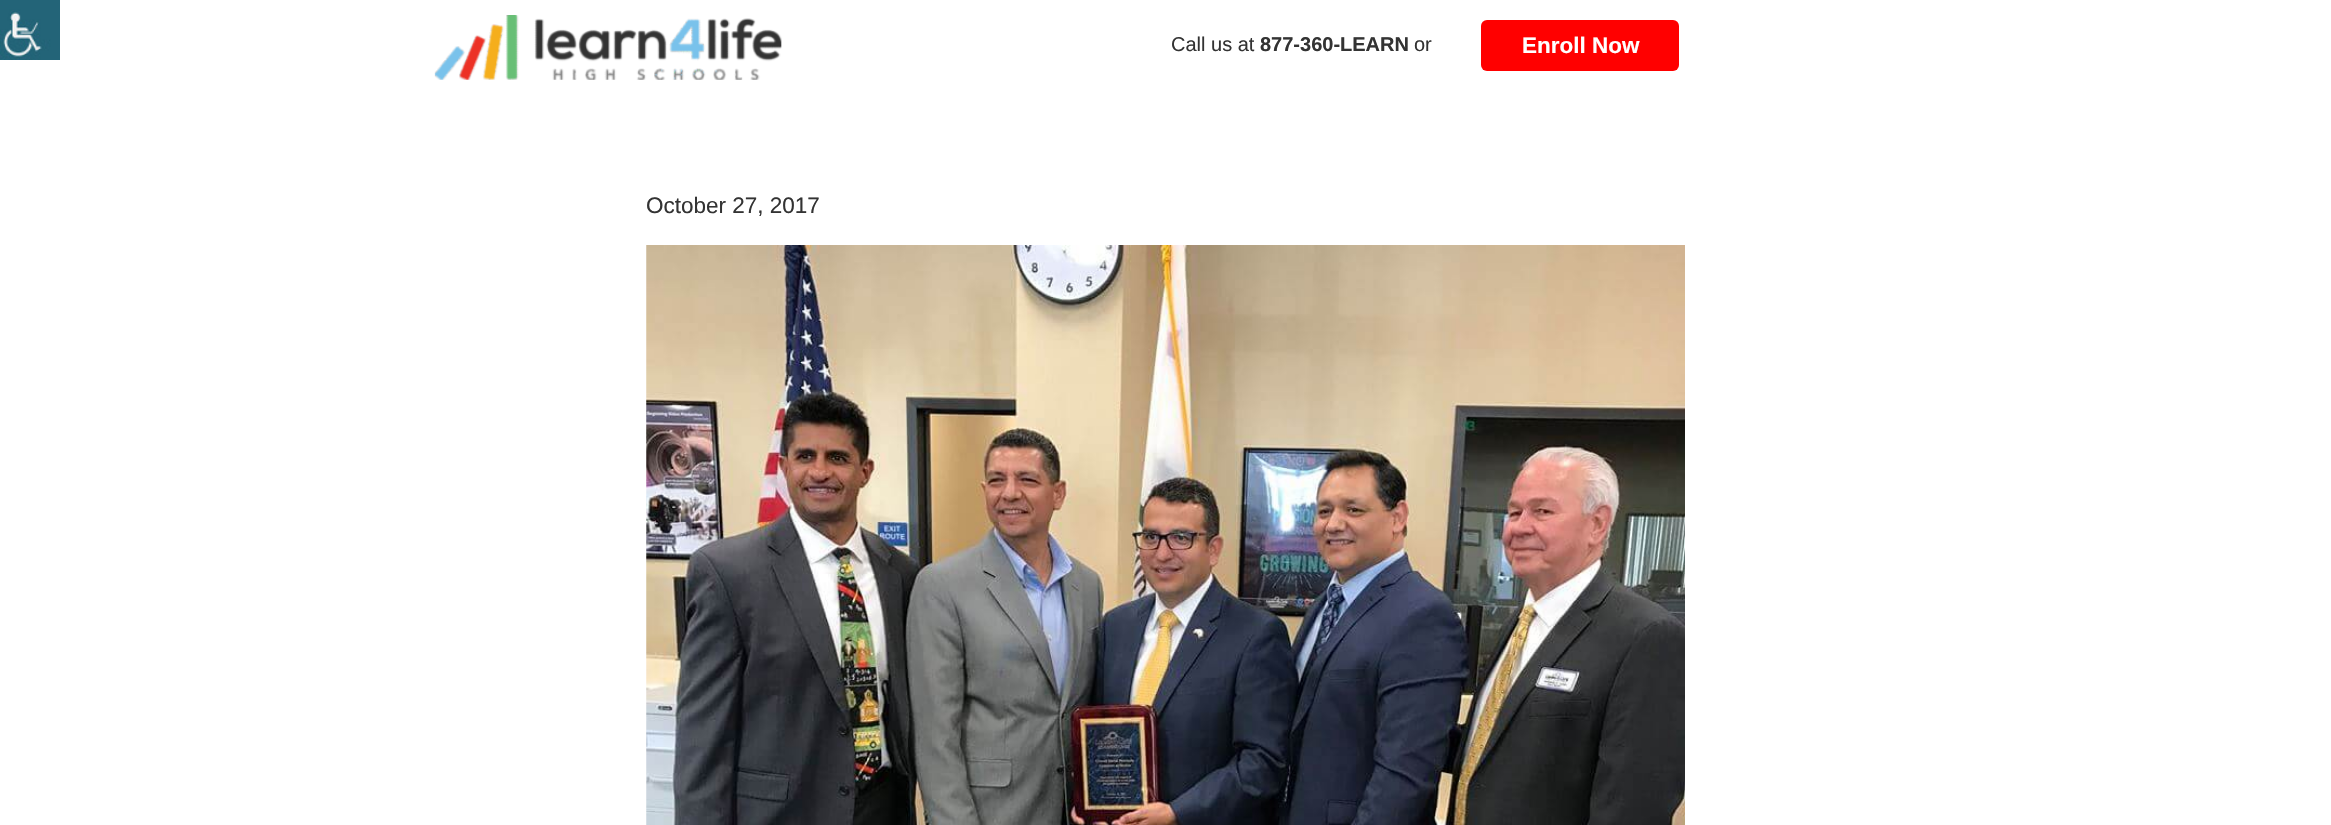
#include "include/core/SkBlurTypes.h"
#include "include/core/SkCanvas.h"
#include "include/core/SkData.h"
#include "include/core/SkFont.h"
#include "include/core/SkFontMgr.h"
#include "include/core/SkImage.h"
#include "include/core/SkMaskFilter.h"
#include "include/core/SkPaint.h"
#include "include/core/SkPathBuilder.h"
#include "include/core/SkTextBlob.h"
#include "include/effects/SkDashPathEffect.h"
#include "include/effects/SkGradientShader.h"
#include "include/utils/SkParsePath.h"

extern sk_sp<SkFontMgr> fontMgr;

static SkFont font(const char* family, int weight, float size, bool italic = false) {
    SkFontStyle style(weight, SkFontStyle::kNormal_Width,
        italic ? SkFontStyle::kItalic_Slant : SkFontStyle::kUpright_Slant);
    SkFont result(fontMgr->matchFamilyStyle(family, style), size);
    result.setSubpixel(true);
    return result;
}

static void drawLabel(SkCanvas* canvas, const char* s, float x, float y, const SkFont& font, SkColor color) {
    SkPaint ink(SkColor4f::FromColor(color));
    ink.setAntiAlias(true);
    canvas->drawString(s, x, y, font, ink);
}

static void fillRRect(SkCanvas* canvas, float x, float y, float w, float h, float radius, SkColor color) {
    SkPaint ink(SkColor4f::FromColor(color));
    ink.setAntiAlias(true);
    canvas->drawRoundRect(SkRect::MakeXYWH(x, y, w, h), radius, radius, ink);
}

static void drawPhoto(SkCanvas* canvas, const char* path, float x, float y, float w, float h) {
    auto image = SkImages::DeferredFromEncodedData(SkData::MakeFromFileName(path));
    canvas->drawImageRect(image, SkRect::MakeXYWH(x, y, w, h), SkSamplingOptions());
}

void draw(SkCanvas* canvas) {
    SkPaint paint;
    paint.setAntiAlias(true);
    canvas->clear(0xFFFFFFFF);
    drawPhoto(canvas, "assets/img1.png", 0, 0, 60, 60);
    drawPhoto(canvas, "assets/img2.png", 434, 15, 348, 65);
    SkFont font1 = font("Liberation Sans", 400, 20);
    drawLabel(canvas, "Call us at", 1171, 51, font1, 0xFF333333);
    SkFont font2 = font("Liberation Sans", 700, 20);
    drawLabel(canvas, "877-360-LEARN", 1260, 51, font2, 0xFF333333);
    drawLabel(canvas, "or", 1414, 51, font1, 0xFF333333);
    fillRRect(canvas, 1481, 20, 198, 51, 6, 0xFFFF0000);
    SkFont font3 = font("Liberation Sans", 700, 22.5f);
    drawLabel(canvas, "Enroll Now", 1522, 53, font3, 0xFFFFFFFF);
    SkFont font4 = font("Liberation Sans", 400, 22.5f);
    drawLabel(canvas, "October 27, 2017", 646, 213, font4, 0xFF333333);
    drawPhoto(canvas, "assets/img3.png", 646, 245, 1039, 580);
}
